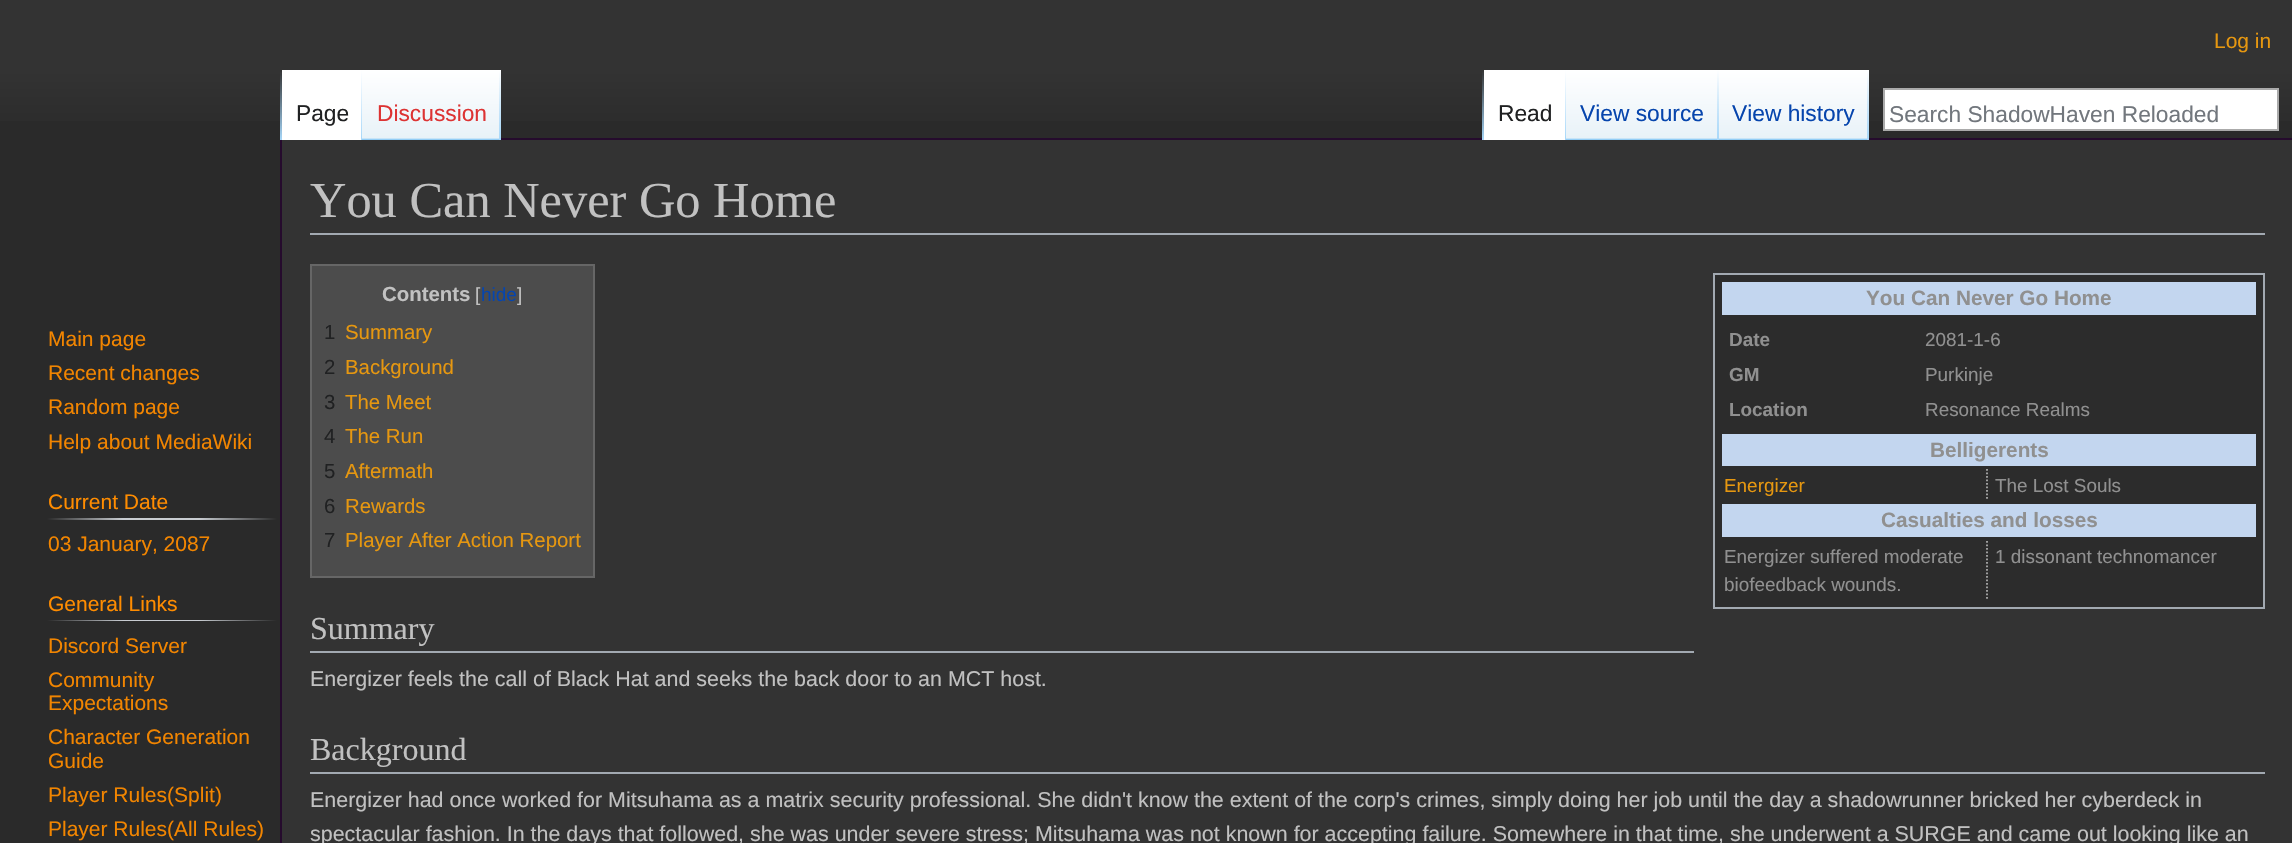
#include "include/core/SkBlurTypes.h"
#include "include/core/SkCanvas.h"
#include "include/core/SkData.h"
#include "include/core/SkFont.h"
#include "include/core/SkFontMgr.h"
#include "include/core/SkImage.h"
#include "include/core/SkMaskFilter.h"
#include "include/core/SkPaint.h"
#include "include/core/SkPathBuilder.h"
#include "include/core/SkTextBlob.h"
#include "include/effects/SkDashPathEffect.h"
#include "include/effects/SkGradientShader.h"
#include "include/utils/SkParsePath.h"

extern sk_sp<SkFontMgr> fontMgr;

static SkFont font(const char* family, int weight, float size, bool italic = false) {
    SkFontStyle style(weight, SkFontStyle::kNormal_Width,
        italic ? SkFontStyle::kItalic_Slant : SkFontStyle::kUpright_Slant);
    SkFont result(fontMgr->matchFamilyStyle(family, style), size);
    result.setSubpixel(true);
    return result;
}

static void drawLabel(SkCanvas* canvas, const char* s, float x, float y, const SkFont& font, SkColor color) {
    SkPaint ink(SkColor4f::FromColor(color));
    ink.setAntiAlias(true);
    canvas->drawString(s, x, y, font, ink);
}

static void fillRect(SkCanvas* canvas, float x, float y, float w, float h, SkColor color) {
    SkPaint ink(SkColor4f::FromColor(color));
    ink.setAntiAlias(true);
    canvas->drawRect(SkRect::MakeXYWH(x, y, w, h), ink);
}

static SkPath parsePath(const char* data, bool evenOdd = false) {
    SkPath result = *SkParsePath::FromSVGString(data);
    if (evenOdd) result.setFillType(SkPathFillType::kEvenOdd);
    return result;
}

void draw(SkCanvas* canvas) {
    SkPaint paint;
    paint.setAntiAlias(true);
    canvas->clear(0xFF2A2A2A);
    {
        const SkColor colors[] = {0xFF333333, 0xFF2A2A2A};
        const float stops[] = {0.5f, 1};
        const SkPoint ends[] = {{1146, 0}, {1146, 140}};
        paint.setShader(SkGradientShader::MakeLinear(ends, colors, stops, 2, SkTileMode::kClamp));
        paint.setAlpha(255);
    }
    canvas->drawRect(SkRect::MakeXYWH(0, 0, 2292, 121), paint);
    SkFont font1 = font("Liberation Sans", 400, 21);
    drawLabel(canvas, "Log in", 2214, 48, font1, 0xFFE69710);
    fillRect(canvas, 280, 138, 2, 705, 0xFF250B2D);
    {
        const SkColor colors[] = {0x00A7D7F9, 0xFFA7D7F9};
        const float stops[] = {0, 1};
        const SkPoint ends[] = {{281, 70}, {281, 140}};
        paint.setShader(SkGradientShader::MakeLinear(ends, colors, stops, 2, SkTileMode::kClamp));
        paint.setAlpha(255);
    }
    canvas->drawRect(SkRect::MakeXYWH(280, 70, 2, 70), paint);
    fillRect(canvas, 282, 70, 79, 70, 0xFFFFFFFF);
    {
        const SkColor colors[] = {0xFFFFFFFF, 0xFFA7D7F9};
        const float stops[] = {0, 1};
        const SkPoint ends[] = {{361, 70}, {361, 140}};
        paint.setShader(SkGradientShader::MakeLinear(ends, colors, stops, 2, SkTileMode::kClamp));
        paint.setAlpha(255);
    }
    canvas->drawRect(SkRect::MakeXYWH(361, 70, 1, 70), paint);
    SkFont font2 = font("Liberation Sans", 400, 22.75f);
    drawLabel(canvas, "Page", 296, 121, font2, 0xFF202122);
    {
        const SkColor colors[] = {0xFF77C1F6, 0xFFE8F2F8, 0xFFFFFFFF};
        const float stops[] = {0, 0.03f, 1};
        const SkPoint ends[] = {{431, 140}, {431, 70}};
        paint.setShader(SkGradientShader::MakeLinear(ends, colors, stops, 3, SkTileMode::kClamp));
        paint.setAlpha(255);
    }
    canvas->drawRect(SkRect::MakeXYWH(362, 70, 139, 70), paint);
    {
        const SkColor colors[] = {0x00A7D7F9, 0xFFA7D7F9};
        const float stops[] = {0, 1};
        const SkPoint ends[] = {{500, 70}, {500, 140}};
        paint.setShader(SkGradientShader::MakeLinear(ends, colors, stops, 2, SkTileMode::kClamp));
        paint.setAlpha(255);
    }
    canvas->drawRect(SkRect::MakeXYWH(499, 70, 2, 70), paint);
    drawLabel(canvas, "Discussion", 377, 121, font2, 0xFFDD3333);
    fillRect(canvas, 501, 138, 1791, 2, 0xFF250B2D);
    {
        const SkColor colors[] = {0x00A7D7F9, 0xFFA7D7F9};
        const float stops[] = {0, 1};
        const SkPoint ends[] = {{1483, 70}, {1483, 140}};
        paint.setShader(SkGradientShader::MakeLinear(ends, colors, stops, 2, SkTileMode::kClamp));
        paint.setAlpha(255);
    }
    canvas->drawRect(SkRect::MakeXYWH(1482, 70, 2, 70), paint);
    fillRect(canvas, 1484, 70, 81, 70, 0xFFFFFFFF);
    {
        const SkColor colors[] = {0xFFFFFFFF, 0xFFA7D7F9};
        const float stops[] = {0, 1};
        const SkPoint ends[] = {{1565, 70}, {1565, 140}};
        paint.setShader(SkGradientShader::MakeLinear(ends, colors, stops, 2, SkTileMode::kClamp));
        paint.setAlpha(255);
    }
    canvas->drawRect(SkRect::MakeXYWH(1565, 70, 1, 70), paint);
    drawLabel(canvas, "Read", 1498, 121, font2, 0xFF202122);
    {
        const SkColor colors[] = {0xFF77C1F6, 0xFFE8F2F8, 0xFFFFFFFF};
        const float stops[] = {0, 0.03f, 1};
        const SkPoint ends[] = {{1642, 140}, {1642, 70}};
        paint.setShader(SkGradientShader::MakeLinear(ends, colors, stops, 3, SkTileMode::kClamp));
        paint.setAlpha(255);
    }
    canvas->drawRect(SkRect::MakeXYWH(1566, 70, 153, 70), paint);
    {
        const SkColor colors[] = {0x00A7D7F9, 0xFFA7D7F9};
        const float stops[] = {0, 1};
        const SkPoint ends[] = {{1718, 70}, {1718, 140}};
        paint.setShader(SkGradientShader::MakeLinear(ends, colors, stops, 2, SkTileMode::kClamp));
        paint.setAlpha(255);
    }
    canvas->drawRect(SkRect::MakeXYWH(1717, 70, 2, 70), paint);
    drawLabel(canvas, "View source", 1580, 121, font2, 0xFF0645AD);
    {
        const SkColor colors[] = {0xFF77C1F6, 0xFFE8F2F8, 0xFFFFFFFF};
        const float stops[] = {0, 0.03f, 1};
        const SkPoint ends[] = {{1794, 140}, {1794, 70}};
        paint.setShader(SkGradientShader::MakeLinear(ends, colors, stops, 3, SkTileMode::kClamp));
        paint.setAlpha(255);
    }
    canvas->drawRect(SkRect::MakeXYWH(1719, 70, 150, 70), paint);
    {
        const SkColor colors[] = {0x00A7D7F9, 0xFFA7D7F9};
        const float stops[] = {0, 1};
        const SkPoint ends[] = {{1868, 70}, {1868, 140}};
        paint.setShader(SkGradientShader::MakeLinear(ends, colors, stops, 2, SkTileMode::kClamp));
        paint.setAlpha(255);
    }
    canvas->drawRect(SkRect::MakeXYWH(1867, 70, 2, 70), paint);
    drawLabel(canvas, "View history", 1732, 121, font2, 0xFF0645AD);
    paint.setShader(nullptr);
    paint.setColor(0xFFFFFFFF);
    canvas->drawRect(SkRect::MakeXYWH(1884, 89, 394, 41), paint);
    paint.setStroke(true);
    paint.setStrokeWidth(2);
    paint.setColor(0xFFAAAAAA);
    canvas->drawRect(SkRect::MakeXYWH(1884, 89, 394, 41), paint);
    drawLabel(canvas, "Search ShadowHaven Reloaded", 1889, 122, font2, 0xFF72777D);
    drawLabel(canvas, "Main page", 48, 346, font1, 0xFFF28500);
    drawLabel(canvas, "Recent changes", 48, 380, font1, 0xFFF28500);
    drawLabel(canvas, "Random page", 48, 414, font1, 0xFFF28500);
    drawLabel(canvas, "Help about MediaWiki", 48, 449, font1, 0xFFF28500);
    paint.setStroke(false);
    {
        const SkColor colors[] = {0xFF2A2A2A, 0xFFC8CCD1, 0xFFC8CCD1, 0xFF2A2A2A};
        const float stops[] = {0, 0.33f, 0.66f, 1};
        const SkPoint ends[] = {{47, 519}, {277, 519}};
        paint.setShader(SkGradientShader::MakeLinear(ends, colors, stops, 4, SkTileMode::kClamp));
        paint.setAlpha(255);
    }
    canvas->drawRect(SkRect::MakeXYWH(47, 518, 230, 2), paint);
    drawLabel(canvas, "Current Date", 48, 509, font1, 0xFFFF8C00);
    drawLabel(canvas, "03 January, 2087", 48, 551, font1, 0xFFF28500);
    {
        const SkColor colors[] = {0xFF2A2A2A, 0xFFC8CCD1, 0xFFC8CCD1, 0xFF2A2A2A};
        const float stops[] = {0, 0.33f, 0.66f, 1};
        const SkPoint ends[] = {{47, 620}, {277, 620}};
        paint.setShader(SkGradientShader::MakeLinear(ends, colors, stops, 4, SkTileMode::kClamp));
        paint.setAlpha(255);
    }
    canvas->drawRect(SkRect::MakeXYWH(47, 620, 230, 1), paint);
    drawLabel(canvas, "General Links", 48, 611, font1, 0xFFFF8C00);
    drawLabel(canvas, "Discord Server", 48, 653, font1, 0xFFF28500);
    drawLabel(canvas, "Community", 48, 687, font1, 0xFFF28500);
    drawLabel(canvas, "Expectations", 48, 710, font1, 0xFFF28500);
    drawLabel(canvas, "Character Generation", 48, 744, font1, 0xFFF28500);
    drawLabel(canvas, "Guide", 48, 768, font1, 0xFFF28500);
    drawLabel(canvas, "Player Rules(Split)", 48, 802, font1, 0xFFF28500);
    drawLabel(canvas, "Player Rules(All Rules)", 48, 836, font1, 0xFFF28500);
    fillRect(canvas, 282, 140, 2010, 703, 0xFF333333);
    fillRect(canvas, 310, 233, 1955, 2, 0xFFA2A9B1);
    SkFont font3 = font("Liberation Serif", 400, 50.4f);
    drawLabel(canvas, "You Can Never Go Home", 310, 217, font3, 0xFFC1C1C1);
    paint.setShader(nullptr);
    paint.setColor(0xFF4C4C4C);
    canvas->drawRect(SkRect::MakeXYWH(311, 265, 283, 312), paint);
    paint.setStroke(true);
    paint.setColor(0xFF666666);
    canvas->drawRect(SkRect::MakeXYWH(311, 265, 283, 312), paint);
    SkFont font4 = font("Liberation Sans", 700, 20.4f);
    drawLabel(canvas, "Contents", 382, 301, font4, 0xFFC1C1C1);
    SkFont font5 = font("Liberation Sans", 400, 19);
    drawLabel(canvas, "[", 475, 301, font5, 0xFFC1C1C1);
    drawLabel(canvas, "hide", 481, 301, font5, 0xFF0645AD);
    drawLabel(canvas, "]", 517, 301, font5, 0xFFC1C1C1);
    SkFont font6 = font("Liberation Sans", 400, 20.4f);
    drawLabel(canvas, "1", 324, 339, font6, 0xFF202122);
    drawLabel(canvas, "Summary", 345, 339, font6, 0xFFE69710);
    drawLabel(canvas, "2", 324, 374, font6, 0xFF202122);
    drawLabel(canvas, "Background", 345, 374, font6, 0xFFE69710);
    drawLabel(canvas, "3", 324, 409, font6, 0xFF202122);
    drawLabel(canvas, "The Meet", 345, 409, font6, 0xFFE69710);
    drawLabel(canvas, "4", 324, 443, font6, 0xFF202122);
    drawLabel(canvas, "The Run", 345, 443, font6, 0xFFE69710);
    drawLabel(canvas, "5", 324, 478, font6, 0xFF202122);
    drawLabel(canvas, "Aftermath", 345, 478, font6, 0xFFE69710);
    drawLabel(canvas, "6", 324, 513, font6, 0xFF202122);
    drawLabel(canvas, "Rewards", 345, 513, font6, 0xFFE69710);
    drawLabel(canvas, "7", 324, 547, font6, 0xFF202122);
    drawLabel(canvas, "Player After Action Report", 345, 547, font6, 0xFFE69710);
    paint.setStroke(false);
    paint.setColor(0xFF2C2C2C);
    canvas->drawRect(SkRect::MakeXYWH(1714, 274, 550, 334), paint);
    paint.setStroke(true);
    paint.setColor(0xFFA2A9B1);
    canvas->drawRect(SkRect::MakeXYWH(1714, 274, 550, 334), paint);
    fillRect(canvas, 1722, 282, 534, 33, 0xFFC3D6EF);
    SkFont font7 = font("Liberation Sans", 700, 20.75f);
    drawLabel(canvas, "You Can Never Go Home", 1866, 305, font7, 0xFF909090);
    SkFont font8 = font("Liberation Sans", 700, 18.9f);
    drawLabel(canvas, "Date", 1729, 346, font8, 0xFF909090);
    SkFont font9 = font("Liberation Sans", 400, 18.9f);
    drawLabel(canvas, "2081-1-6", 1925, 346, font9, 0xFF909090);
    drawLabel(canvas, "GM", 1729, 381, font8, 0xFF909090);
    drawLabel(canvas, "Purkinje", 1925, 381, font9, 0xFF909090);
    drawLabel(canvas, "Location", 1729, 416, font8, 0xFF909090);
    drawLabel(canvas, "Resonance Realms", 1925, 416, font9, 0xFF909090);
    fillRect(canvas, 1722, 434, 534, 32, 0xFFC3D6EF);
    drawLabel(canvas, "Belligerents", 1930, 457, font7, 0xFF909090);
    paint.setStrokeWidth(1.8f);
    paint.setColor(0xFFAAAAAA);
    paint.setPathEffect(SkDashPathEffect::Make({{1.75f, 1.75f}}, 0));
    canvas->drawPath(parsePath("M1987 469V500.5"), paint);
    paint.setPathEffect(nullptr);
    drawLabel(canvas, "Energizer", 1724, 492, font9, 0xFFE69710);
    drawLabel(canvas, "The Lost Souls", 1995, 492, font9, 0xFF909090);
    fillRect(canvas, 1722, 504, 534, 33, 0xFFC3D6EF);
    drawLabel(canvas, "Casualties and losses", 1881, 527, font7, 0xFF909090);
    paint.setPathEffect(SkDashPathEffect::Make({{1.75f, 1.75f}}, 0));
    canvas->drawPath(parsePath("M1987 541V600"), paint);
    paint.setPathEffect(nullptr);
    drawLabel(canvas, "Energizer suffered moderate", 1724, 563, font9, 0xFF909090);
    drawLabel(canvas, "biofeedback wounds.", 1724, 591, font9, 0xFF909090);
    drawLabel(canvas, "1 dissonant technomancer", 1995, 563, font9, 0xFF909090);
    fillRect(canvas, 310, 651, 1384, 2, 0xFFA2A9B1);
    SkFont font10 = font("Liberation Serif", 400, 32);
    drawLabel(canvas, "Summary", 310, 639, font10, 0xFFC1C1C1);
    SkFont font11 = font("Liberation Sans", 400, 21.45f);
    drawLabel(canvas, "Energizer feels the call of Black Hat and seeks the back door to an MCT host.", 310, 686, font11, 0xFFC1C1C1);
    fillRect(canvas, 310, 772, 1955, 2, 0xFFA2A9B1);
    drawLabel(canvas, "Background", 310, 760, font10, 0xFFC1C1C1);
    drawLabel(canvas, "Energizer had once worked for Mitsuhama as a matrix security professional. She didn't know the extent of the corp's crimes, simply doing her job until the day a shadowrunner bricked her cyberdeck in", 310, 807, font11, 0xFFC1C1C1);
    drawLabel(canvas, "spectacular fashion. In the days that followed, she was under severe stress; Mitsuhama was not known for accepting failure. Somewhere in that time, she underwent a SURGE and came out looking like an", 310, 841, font11, 0xFFC1C1C1);
}
